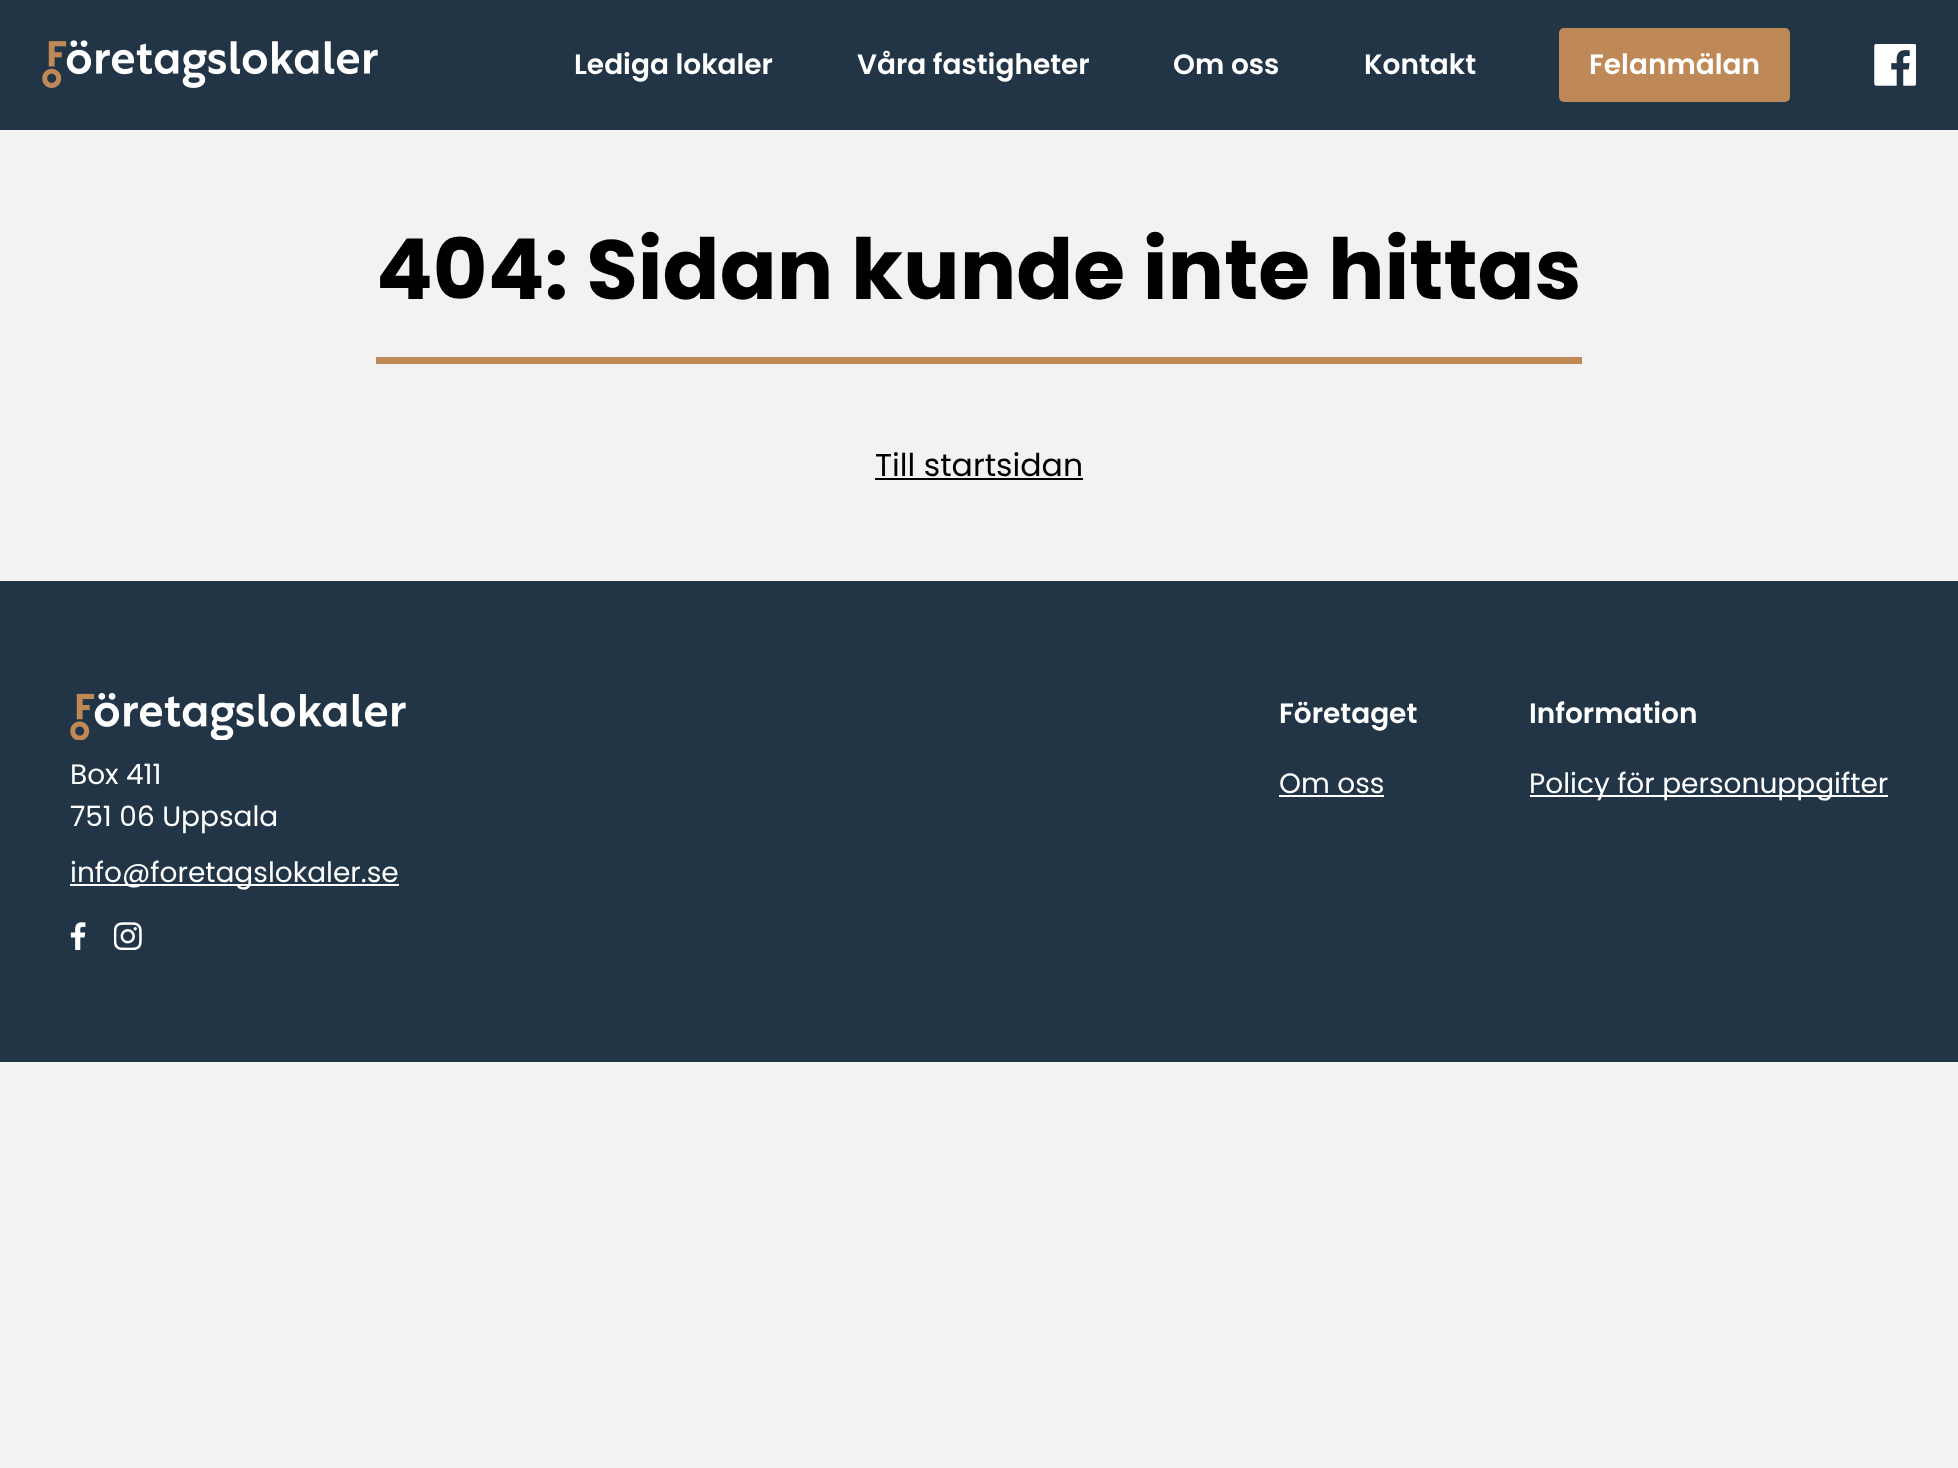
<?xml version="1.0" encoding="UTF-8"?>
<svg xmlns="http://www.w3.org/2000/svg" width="1958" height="1468">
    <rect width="100%" height="100%" fill="#F2F2F2"/>
    <rect x="0" y="0" width="1958" height="130" fill="#223547"/>
    <image x="42" y="40" width="336" height="48" href="img_01.png"/>
    <text x="574" y="74" font-family="Poppins" font-size="28" font-weight="600" fill="#FFFFFF">Lediga lokaler</text>
    <text x="857" y="74" font-family="Poppins" font-size="28" font-weight="600" fill="#FFFFFF">Våra fastigheter</text>
    <text x="1173" y="74" font-family="Poppins" font-size="28" font-weight="600" fill="#FFFFFF">Om oss</text>
    <text x="1364" y="74" font-family="Poppins" font-size="28" font-weight="600" fill="#FFFFFF">Kontakt</text>
    <rect x="1559" y="28" width="231" height="74" rx="5" fill="#BE8957"/>
    <text x="1589" y="74" font-family="Poppins" font-size="28" font-weight="600" fill="#FFFFFF">Felanmälan</text>
    <image x="1874" y="44" width="42" height="42" href="img_02.png"/>
    <rect x="376" y="357" width="1206" height="7" fill="#BE8957"/>
    <text x="376" y="299" font-family="Poppins" font-size="84" font-weight="700" fill="#000000">404: Sidan kunde inte hittas</text>
    <text x="875" y="476" font-family="Poppins" font-size="31.5" fill="#000000">Till startsidan</text>
    <rect x="875" y="478" width="208" height="2" fill="#000000"/>
    <rect x="0" y="581" width="1958" height="481" fill="#223547"/>
    <text x="1279" y="723" font-family="Poppins" font-size="28" font-weight="600" fill="#FFFFFF">Företaget</text>
    <text x="1279" y="793" font-family="Poppins" font-size="28" fill="#FFFFFF">Om oss</text>
    <rect x="1279" y="795" width="105" height="2" fill="#FFFFFF"/>
    <text x="1529" y="723" font-family="Poppins" font-size="28" font-weight="600" fill="#FFFFFF">Information</text>
    <rect x="1530" y="795" width="358" height="2" fill="#FFFFFF"/>
    <text x="1529" y="793" font-family="Poppins" font-size="28" fill="#FFFFFF">Policy för personuppgifter</text>
    <image x="70" y="693" width="336" height="47" href="img_03.png"/>
    <text font-family="Poppins" font-size="28" fill="#FFFFFF">
        <tspan x="70" y="784">Box 411</tspan>
        <tspan x="70" y="826">751 06 Uppsala</tspan>
    </text>
    <rect x="70" y="884" width="329" height="2" fill="#FFFFFF"/>
    <text x="70" y="882" font-family="Poppins" font-size="28" fill="#FFFFFF">info@foretagslokaler.se</text>
    <image x="70" y="922" width="16" height="28" href="img_04.png"/>
    <image x="114" y="922" width="28" height="28" href="img_05.png"/>
</svg>
